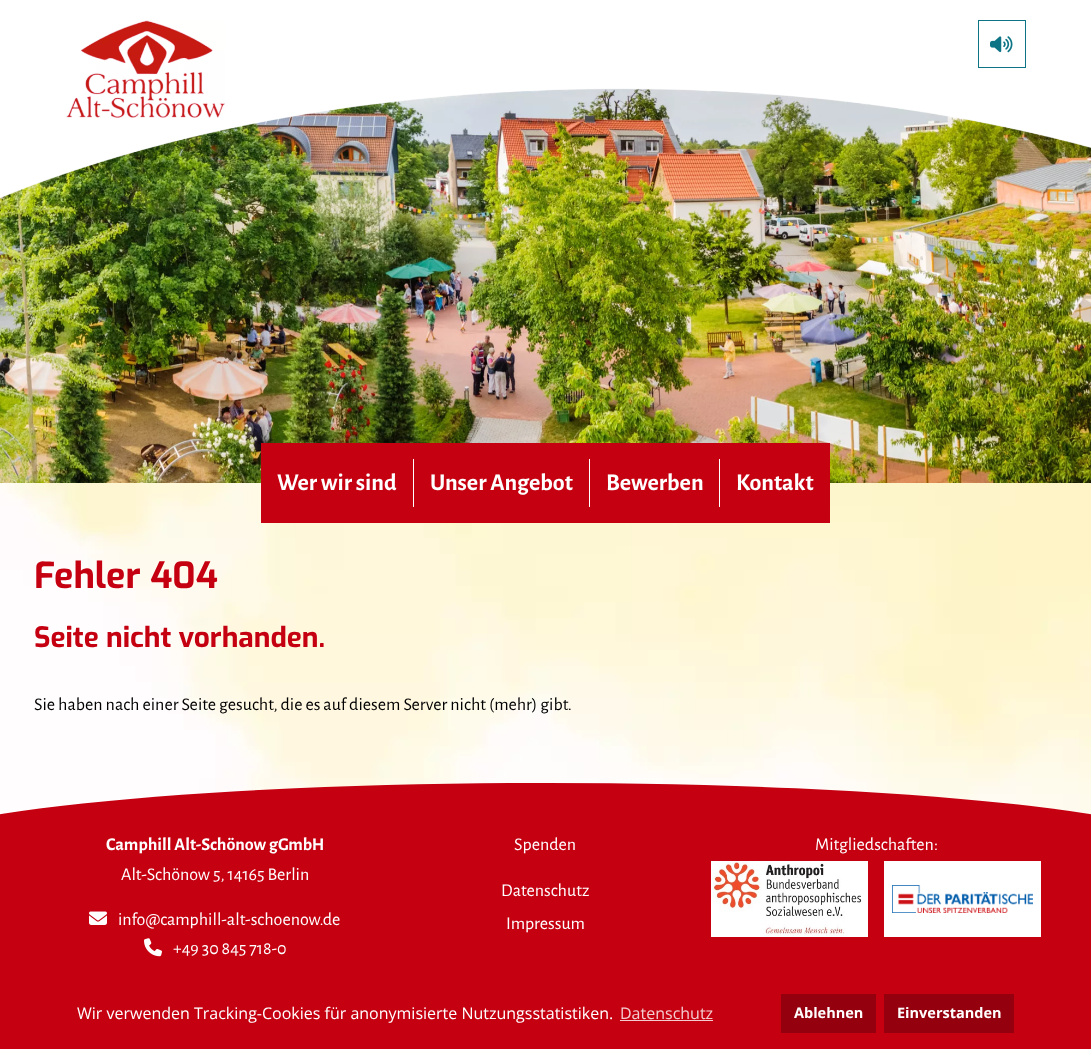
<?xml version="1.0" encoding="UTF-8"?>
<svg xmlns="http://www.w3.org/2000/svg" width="1091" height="1049">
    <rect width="100%" height="100%" fill="#FFFFFF"/>
    <image x="0" y="483" width="1091" height="332" href="img_01.png"/>
    <image x="0" y="88" width="1091" height="395" href="img_02.png"/>
    <image x="66" y="20" width="159" height="98" href="img_03.png"/>
    <rect x="978.5" y="20.5" width="47" height="47" fill="none" stroke="#0D7485"/>
    <image x="990" y="36" width="23" height="17" href="img_04.png"/>
    <rect x="261" y="443" width="569" height="80" fill="#C50011"/>
    <rect x="413" y="459" width="1" height="48" fill="#FFFFFF"/>
    <text x="277" y="490" font-family="Alegreya Sans" font-size="24" font-weight="700" fill="#FFFFFF">Wer wir sind</text>
    <rect x="589" y="459" width="1" height="48" fill="#FFFFFF"/>
    <text x="430" y="490" font-family="Alegreya Sans" font-size="24" font-weight="700" fill="#FFFFFF">Unser Angebot</text>
    <rect x="719" y="459" width="1" height="48" fill="#FFFFFF"/>
    <text x="606" y="490" font-family="Alegreya Sans" font-size="24" font-weight="700" fill="#FFFFFF">Bewerben</text>
    <text x="736" y="490" font-family="Alegreya Sans" font-size="24" font-weight="700" fill="#FFFFFF">Kontakt</text>
    <text x="34" y="588" font-family="Exo" font-size="36" font-weight="700" fill="#C50011">Fehler 404</text>
    <text x="34" y="647" font-family="Exo" font-size="28" font-weight="700" fill="#C50011">Seite nicht vorhanden.</text>
    <text x="34" y="710" font-family="Alegreya Sans" font-size="18" fill="#000000">Sie haben nach einer Seite gesucht, die es auf diesem Server nicht (mehr) gibt.</text>
    <ellipse cx="545.5" cy="853" rx="654.5" ry="70" fill="#C50011"/>
    <rect x="0" y="891" width="1091" height="158" fill="#C50011"/>
    <text x="106" y="850" font-family="Alegreya Sans" font-size="18" font-weight="700" fill="#FFFFFF">Camphill Alt-Schönow gGmbH</text>
    <text x="121" y="880" font-family="Alegreya Sans" font-size="18" fill="#FFFFFF">Alt-Schönow 5, 14165 Berlin</text>
    <image x="89" y="911" width="18" height="14" href="img_05.png"/>
    <text x="118" y="925" font-family="Alegreya Sans" font-size="18" fill="#FFFFFF">info@camphill-alt-schoenow.de</text>
    <image x="144" y="938" width="18" height="19" href="img_06.png"/>
    <text x="173" y="954" font-family="Alegreya Sans" font-size="18" fill="#FFFFFF">+49 30 845 718-0</text>
    <text x="514" y="850" font-family="Alegreya Sans" font-size="18" fill="#FFFFFF">Spenden</text>
    <text x="501" y="896" font-family="Alegreya Sans" font-size="18" fill="#FFFFFF">Datenschutz</text>
    <text x="506" y="929" font-family="Alegreya Sans" font-size="18" fill="#FFFFFF">Impressum</text>
    <text x="815" y="850" font-family="Alegreya Sans" font-size="18" fill="#FFFFFF">Mitgliedschaften:</text>
    <image x="711" y="861" width="157" height="76" href="img_07.png"/>
    <rect x="884" y="861" width="157" height="76" fill="#FFFFFF"/>
    <image x="892" y="885" width="141" height="28" href="img_08.png"/>
    <text x="77" y="1019" font-family="Open Sans" font-size="16" fill="#FFFFFF">Wir verwenden Tracking-Cookies für anonymisierte Nutzungsstatistiken.</text>
    <text x="620" y="1019" font-family="Open Sans" font-size="16" fill="#F3CCCF">Datenschutz</text>
    <rect x="620" y="1020" width="93" height="1" fill="#F3CCCF"/>
    <rect x="781" y="994" width="95" height="39" fill="#94000D"/>
    <text x="794" y="1018" font-family="Open Sans" font-size="14.5" font-weight="700" fill="#FFFFFF">Ablehnen</text>
    <rect x="884" y="994" width="130" height="39" fill="#94000D"/>
    <text x="897" y="1018" font-family="Open Sans" font-size="14.5" font-weight="700" fill="#FFFFFF">Einverstanden</text>
</svg>
